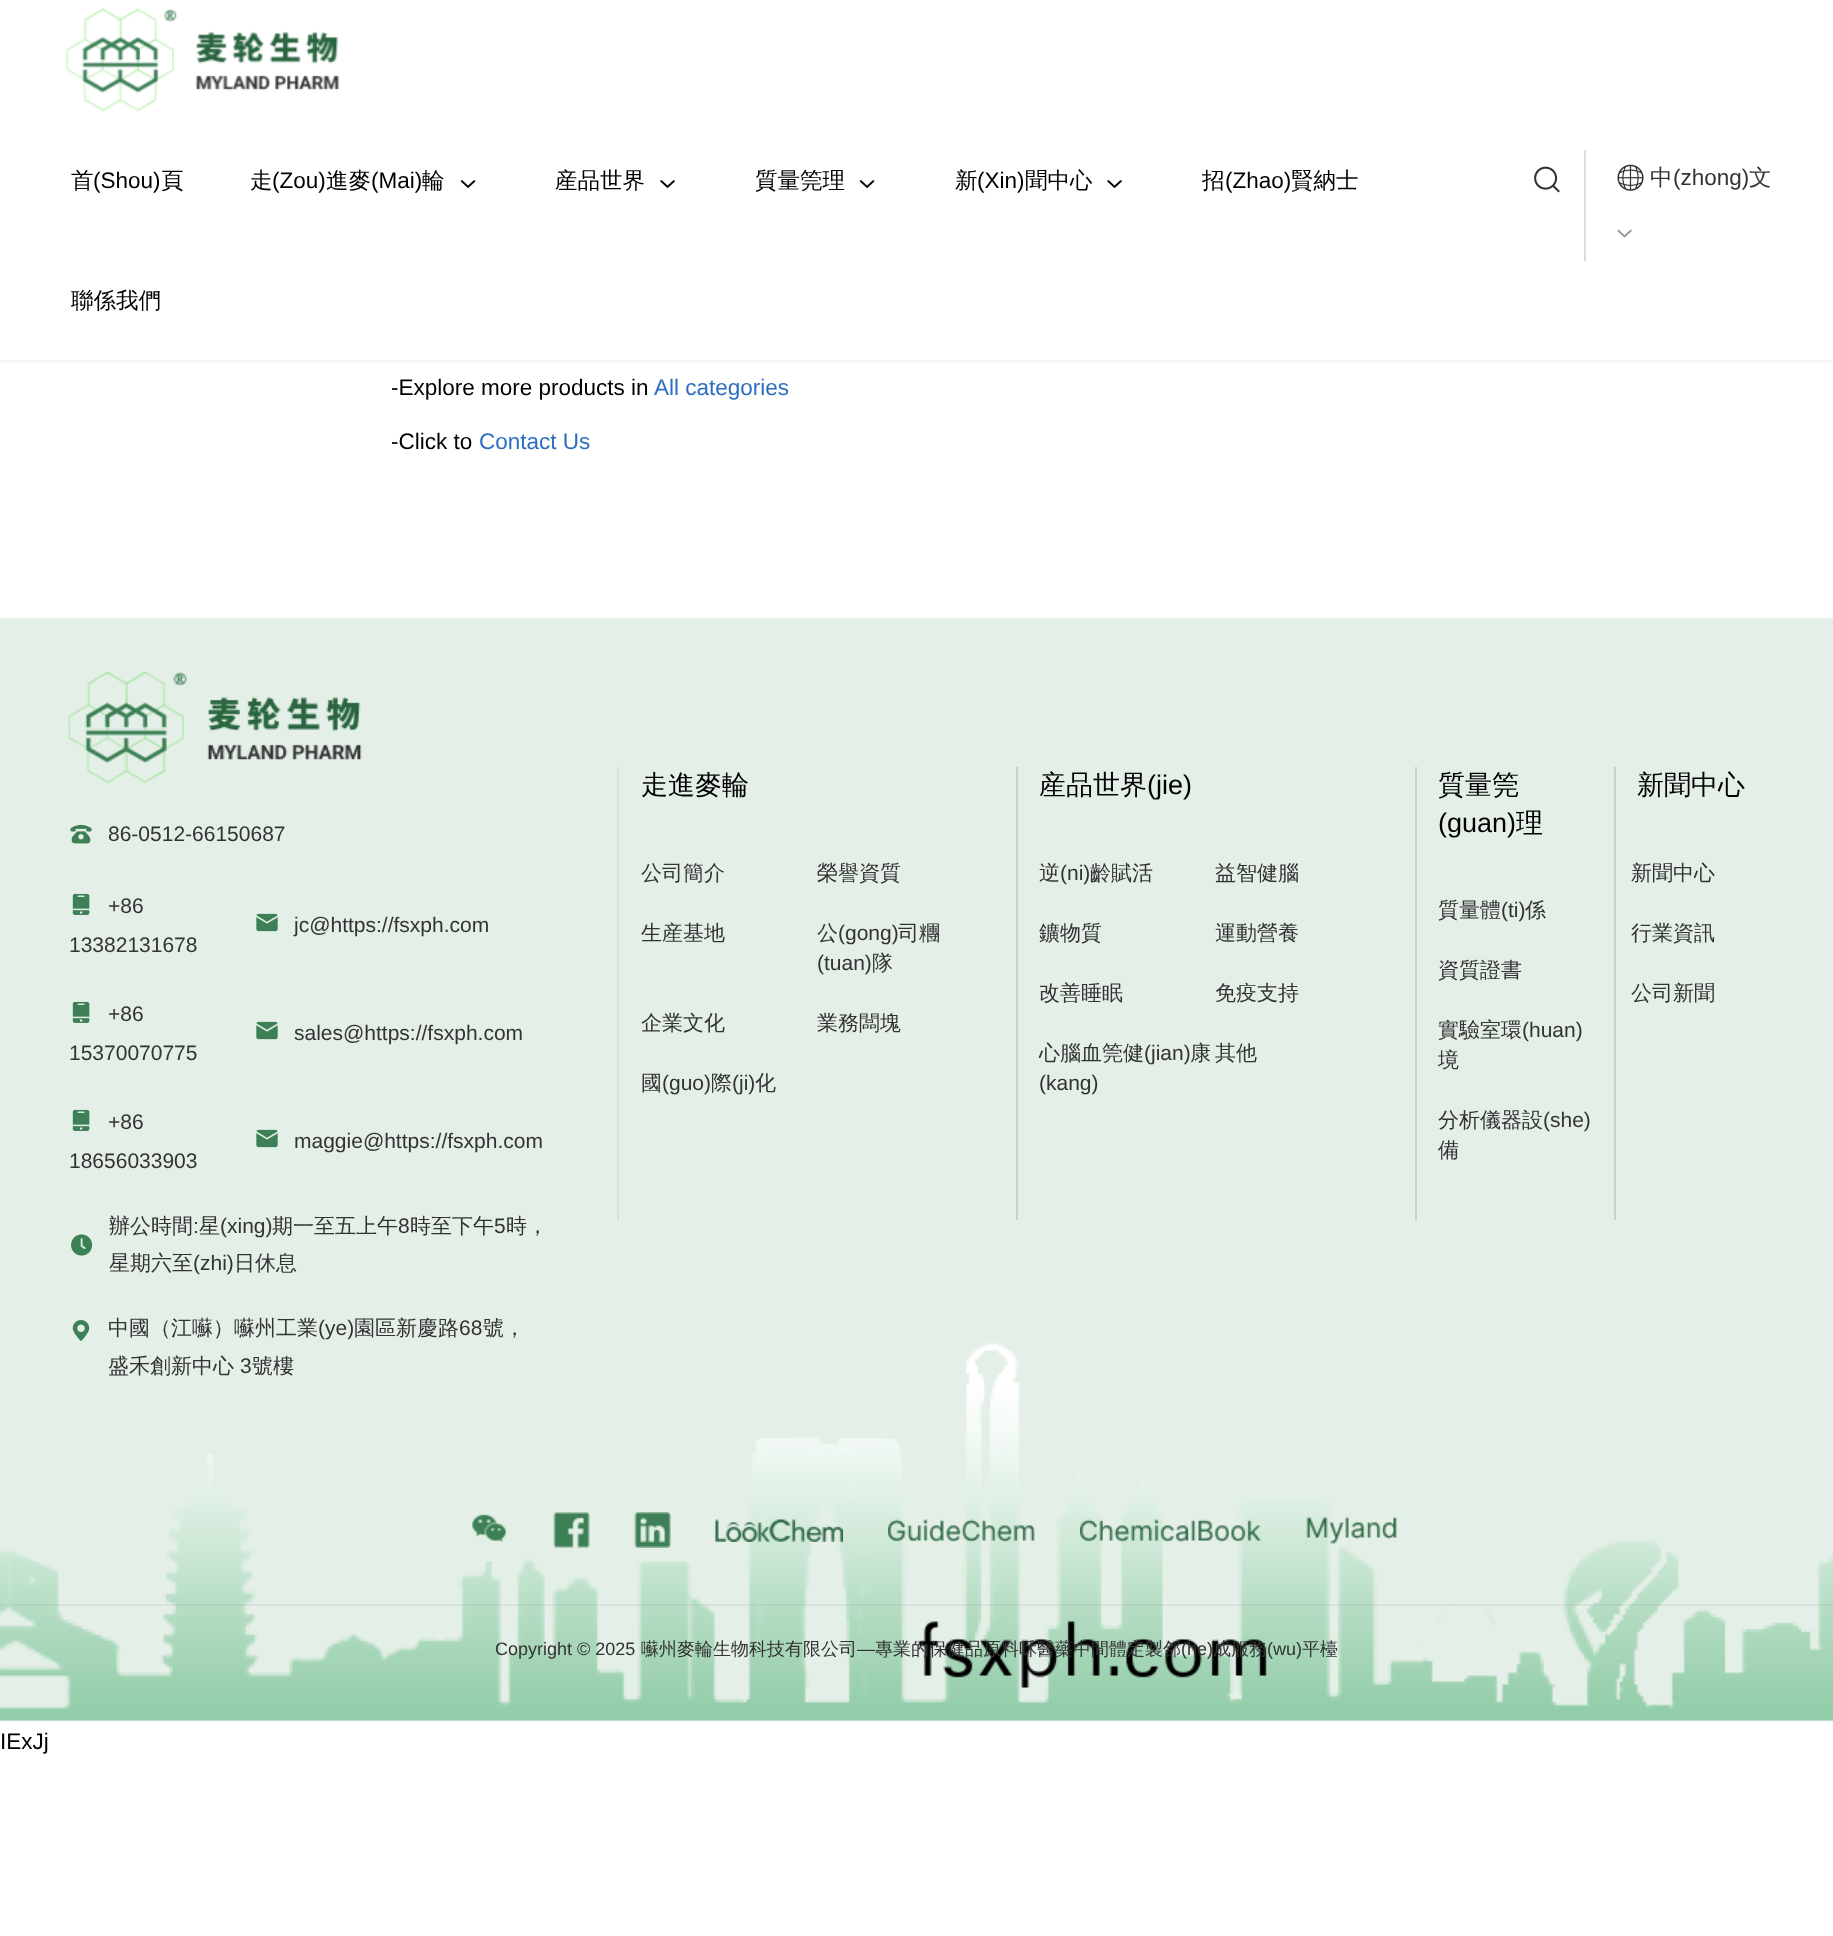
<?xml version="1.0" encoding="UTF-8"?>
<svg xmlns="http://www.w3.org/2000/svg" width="1833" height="1936">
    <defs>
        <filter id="blur1" x="-50%" y="-200%" width="200%" height="500%"><feGaussianBlur stdDeviation="2"/></filter>
    </defs>
    <rect width="100%" height="100%" fill="#FFFFFF"/>
    <rect x="0" y="0" width="1833" height="360" fill="#DDDDDD" filter="url(#blur1)"/>
    <rect x="0" y="0" width="1833" height="360" fill="#FFFFFF"/>
    <image x="66" y="8" width="274" height="104" href="img_01.png"/>
    <text x="71" y="188" font-family="WenQuanYi Zen Hei" font-size="22.5" font-weight="500" fill="#000000">首</text>
    <text x="93" y="188" font-family="Liberation Sans" font-size="22.5" fill="#000000">(Shou)</text>
    <text x="161" y="188" font-family="WenQuanYi Zen Hei" font-size="22.5" font-weight="500" fill="#000000">頁</text>
    <text x="250" y="188" font-family="WenQuanYi Zen Hei" font-size="22.5" font-weight="500" fill="#000000">走</text>
    <text x="272" y="188" font-family="Liberation Sans" font-size="22.5" fill="#000000">(Zou)</text>
    <text x="326" y="188" font-family="WenQuanYi Zen Hei" font-size="22.5" font-weight="500" fill="#000000">進麥</text>
    <text x="371" y="188" font-family="Liberation Sans" font-size="22.5" fill="#000000">(Mai)</text>
    <text x="422" y="188" font-family="WenQuanYi Zen Hei" font-size="22.5" font-weight="500" fill="#000000">輪</text>
    <image x="460" y="180" width="16" height="9" href="img_02.png"/>
    <text x="555" y="188" font-family="WenQuanYi Zen Hei" font-size="22.5" font-weight="500" fill="#000000">産品世界</text>
    <image x="660" y="180" width="15" height="9" href="img_03.png"/>
    <text x="755" y="188" font-family="WenQuanYi Zen Hei" font-size="22.5" font-weight="500" fill="#000000">質量筦理</text>
    <image x="859" y="180" width="16" height="9" href="img_02.png"/>
    <text x="955" y="188" font-family="WenQuanYi Zen Hei" font-size="22.5" font-weight="500" fill="#000000">新</text>
    <text x="977" y="188" font-family="Liberation Sans" font-size="22.5" fill="#000000">(Xin)</text>
    <text x="1025" y="188" font-family="WenQuanYi Zen Hei" font-size="22.5" font-weight="500" fill="#000000">聞中心</text>
    <image x="1107" y="180" width="15" height="9" href="img_03.png"/>
    <text x="1202" y="188" font-family="WenQuanYi Zen Hei" font-size="22.5" font-weight="500" fill="#000000">招</text>
    <text x="1225" y="188" font-family="Liberation Sans" font-size="22.5" fill="#000000">(Zhao)</text>
    <text x="1291" y="188" font-family="WenQuanYi Zen Hei" font-size="22.5" font-weight="500" fill="#000000">賢納士</text>
    <text x="71" y="308" font-family="WenQuanYi Zen Hei" font-size="22.5" font-weight="500" fill="#000000">聯係我們</text>
    <image x="1534" y="166" width="26" height="27" href="img_04.png"/>
    <rect x="1584" y="150" width="2" height="111" fill="#DDDDDD"/>
    <image x="1617" y="164" width="27" height="27" href="img_05.png"/>
    <text x="1650" y="185" font-family="WenQuanYi Zen Hei" font-size="22.5" font-weight="500" fill="#333333">中</text>
    <text x="1673" y="185" font-family="Liberation Sans" font-size="22.5" fill="#333333">(zhong)</text>
    <text x="1749" y="185" font-family="WenQuanYi Zen Hei" font-size="22.5" font-weight="500" fill="#333333">文</text>
    <image x="1617" y="229" width="15" height="9" href="img_06.png"/>
    <text x="391" y="395" font-family="Liberation Sans" font-size="22.5" fill="#000000">-Explore more products in</text>
    <text x="654" y="395" font-family="Liberation Sans" font-size="22.5" fill="#2C6EBF">All categories</text>
    <text x="391" y="449" font-family="Liberation Sans" font-size="22.5" fill="#000000">-Click to</text>
    <text x="479" y="449" font-family="Liberation Sans" font-size="22.5" fill="#2C6EBF">Contact Us</text>
    <rect x="0" y="618" width="1833" height="1103" fill="#E3EFE7"/>
    <image x="0" y="1341" width="1833" height="380" href="img_07.png"/>
    <image x="68" y="672" width="294" height="111" href="img_08.png"/>
    <image x="70" y="824" width="22" height="20" href="img_09.png"/>
    <text x="108" y="841" font-family="Liberation Sans" font-size="21" fill="#333333">86-0512-66150687</text>
    <image x="72" y="893" width="18" height="22" href="img_10.png"/>
    <text x="108" y="913" font-family="Liberation Sans" font-size="21" fill="#333333">+86</text>
    <text x="69" y="952" font-family="Liberation Sans" font-size="21" fill="#333333">13382131678</text>
    <image x="256" y="913" width="22" height="19" href="img_11.png"/>
    <text x="294" y="932" font-family="Liberation Sans" font-size="21" fill="#333333">jc@https://fsxph.com</text>
    <image x="72" y="1001" width="18" height="22" href="img_10.png"/>
    <text x="108" y="1021" font-family="Liberation Sans" font-size="21" fill="#333333">+86</text>
    <text x="69" y="1060" font-family="Liberation Sans" font-size="21" fill="#333333">15370070775</text>
    <image x="256" y="1021" width="22" height="19" href="img_11.png"/>
    <text x="294" y="1040" font-family="Liberation Sans" font-size="21" fill="#333333">sales@https://fsxph.com</text>
    <image x="72" y="1109" width="18" height="22" href="img_10.png"/>
    <text x="108" y="1129" font-family="Liberation Sans" font-size="21" fill="#333333">+86</text>
    <text x="69" y="1168" font-family="Liberation Sans" font-size="21" fill="#333333">18656033903</text>
    <image x="256" y="1129" width="22" height="19" href="img_11.png"/>
    <text x="294" y="1148" font-family="Liberation Sans" font-size="21" fill="#333333">maggie@https://fsxph.com</text>
    <image x="71" y="1234" width="22" height="22" href="img_12.png"/>
    <text x="109" y="1233" font-family="WenQuanYi Zen Hei" font-size="21" font-weight="500" fill="#333333">辦公時間</text>
    <text x="193" y="1233" font-family="Liberation Sans" font-size="21" fill="#333333">:</text>
    <text x="199" y="1233" font-family="WenQuanYi Zen Hei" font-size="21" font-weight="500" fill="#333333">星</text>
    <text x="220" y="1233" font-family="Liberation Sans" font-size="21" fill="#333333">(xing)</text>
    <text x="272" y="1233" font-family="WenQuanYi Zen Hei" font-size="21" font-weight="500" fill="#333333">期一至五上午</text>
    <text x="398" y="1233" font-family="Liberation Sans" font-size="21" fill="#333333">8</text>
    <text x="410" y="1233" font-family="WenQuanYi Zen Hei" font-size="21" font-weight="500" fill="#333333">時至下午</text>
    <text x="494" y="1233" font-family="Liberation Sans" font-size="21" fill="#333333">5</text>
    <text x="506" y="1233" font-family="WenQuanYi Zen Hei" font-size="21" font-weight="500" fill="#333333">時，</text>
    <text x="109" y="1270" font-family="WenQuanYi Zen Hei" font-size="21" font-weight="500" fill="#333333">星期六至</text>
    <text x="193" y="1270" font-family="Liberation Sans" font-size="21" fill="#333333">(zhi)</text>
    <text x="234" y="1270" font-family="WenQuanYi Zen Hei" font-size="21" font-weight="500" fill="#333333">日休息</text>
    <image x="72" y="1320" width="18" height="21" href="img_13.png"/>
    <text x="108" y="1335" font-family="WenQuanYi Zen Hei" font-size="21" font-weight="500" fill="#333333">中國（江囌）囌州工業</text>
    <text x="318" y="1335" font-family="Liberation Sans" font-size="21" fill="#333333">(ye)</text>
    <text x="354" y="1335" font-family="WenQuanYi Zen Hei" font-size="21" font-weight="500" fill="#333333">園區新慶路</text>
    <text x="459" y="1335" font-family="Liberation Sans" font-size="21" fill="#333333">68</text>
    <text x="483" y="1335" font-family="WenQuanYi Zen Hei" font-size="21" font-weight="500" fill="#333333">號，</text>
    <text x="108" y="1373" font-family="WenQuanYi Zen Hei" font-size="21" font-weight="500" fill="#333333">盛禾創新中心</text>
    <text x="240" y="1373" font-family="Liberation Sans" font-size="21" fill="#333333">3</text>
    <text x="252" y="1373" font-family="WenQuanYi Zen Hei" font-size="21" font-weight="500" fill="#333333">號樓</text>
    <rect x="1016" y="767" width="2" height="453" fill="#C8D2CB"/>
    <rect x="617" y="767" width="2" height="453" fill="#DDDDDD"/>
    <text x="641" y="794" font-family="WenQuanYi Zen Hei" font-size="27" font-weight="500" fill="#000000">走進麥輪</text>
    <text x="641" y="880" font-family="WenQuanYi Zen Hei" font-size="21" font-weight="500" fill="#333333">公司簡介</text>
    <text x="817" y="880" font-family="WenQuanYi Zen Hei" font-size="21" font-weight="500" fill="#333333">榮譽資質</text>
    <text x="641" y="940" font-family="WenQuanYi Zen Hei" font-size="21" font-weight="500" fill="#333333">生産基地</text>
    <text x="817" y="940" font-family="WenQuanYi Zen Hei" font-size="21" font-weight="500" fill="#333333">公</text>
    <text x="838" y="940" font-family="Liberation Sans" font-size="21" fill="#333333">(gong)</text>
    <text x="898" y="940" font-family="WenQuanYi Zen Hei" font-size="21" font-weight="500" fill="#333333">司糰</text>
    <text x="817" y="970" font-family="Liberation Sans" font-size="21" fill="#333333">(tuan)</text>
    <text x="872" y="970" font-family="WenQuanYi Zen Hei" font-size="21" font-weight="500" fill="#333333">隊</text>
    <text x="641" y="1030" font-family="WenQuanYi Zen Hei" font-size="21" font-weight="500" fill="#333333">企業文化</text>
    <text x="817" y="1030" font-family="WenQuanYi Zen Hei" font-size="21" font-weight="500" fill="#333333">業務闆塊</text>
    <text x="641" y="1090" font-family="WenQuanYi Zen Hei" font-size="21" font-weight="500" fill="#333333">國</text>
    <text x="662" y="1090" font-family="Liberation Sans" font-size="21" fill="#333333">(guo)</text>
    <text x="711" y="1090" font-family="WenQuanYi Zen Hei" font-size="21" font-weight="500" fill="#333333">際</text>
    <text x="732" y="1090" font-family="Liberation Sans" font-size="21" fill="#333333">(ji)</text>
    <text x="755" y="1090" font-family="WenQuanYi Zen Hei" font-size="21" font-weight="500" fill="#333333">化</text>
    <rect x="1415" y="767" width="2" height="453" fill="#C8D2CB"/>
    <text x="1039" y="794" font-family="WenQuanYi Zen Hei" font-size="27" font-weight="500" fill="#000000">産品世界</text>
    <text x="1147" y="794" font-family="Liberation Sans" font-size="27" fill="#000000">(jie)</text>
    <text x="1039" y="880" font-family="WenQuanYi Zen Hei" font-size="21" font-weight="500" fill="#333333">逆</text>
    <text x="1060" y="880" font-family="Liberation Sans" font-size="21" fill="#333333">(ni)</text>
    <text x="1090" y="880" font-family="WenQuanYi Zen Hei" font-size="21" font-weight="500" fill="#333333">齡賦活</text>
    <text x="1215" y="880" font-family="WenQuanYi Zen Hei" font-size="21" font-weight="500" fill="#333333">益智健腦</text>
    <text x="1039" y="940" font-family="WenQuanYi Zen Hei" font-size="21" font-weight="500" fill="#333333">鑛物質</text>
    <text x="1215" y="940" font-family="WenQuanYi Zen Hei" font-size="21" font-weight="500" fill="#333333">運動營養</text>
    <text x="1039" y="1000" font-family="WenQuanYi Zen Hei" font-size="21" font-weight="500" fill="#333333">改善睡眠</text>
    <text x="1215" y="1000" font-family="WenQuanYi Zen Hei" font-size="21" font-weight="500" fill="#333333">免疫支持</text>
    <text x="1039" y="1060" font-family="WenQuanYi Zen Hei" font-size="21" font-weight="500" fill="#333333">心腦血筦健</text>
    <text x="1144" y="1060" font-family="Liberation Sans" font-size="21" fill="#333333">(jian)</text>
    <text x="1190" y="1060" font-family="WenQuanYi Zen Hei" font-size="21" font-weight="500" fill="#333333">康</text>
    <text x="1039" y="1090" font-family="Liberation Sans" font-size="21" fill="#333333">(kang)</text>
    <text x="1215" y="1060" font-family="WenQuanYi Zen Hei" font-size="21" font-weight="500" fill="#333333">其他</text>
    <rect x="1614" y="767" width="2" height="453" fill="#C8D2CB"/>
    <text x="1438" y="794" font-family="WenQuanYi Zen Hei" font-size="27" font-weight="500" fill="#000000">質量筦</text>
    <text x="1438" y="832" font-family="Liberation Sans" font-size="27" fill="#000000">(guan)</text>
    <text x="1516" y="832" font-family="WenQuanYi Zen Hei" font-size="27" font-weight="500" fill="#000000">理</text>
    <text x="1438" y="917" font-family="WenQuanYi Zen Hei" font-size="21" font-weight="500" fill="#333333">質量體</text>
    <text x="1501" y="917" font-family="Liberation Sans" font-size="21" fill="#333333">(ti)</text>
    <text x="1525" y="917" font-family="WenQuanYi Zen Hei" font-size="21" font-weight="500" fill="#333333">係</text>
    <text x="1438" y="977" font-family="WenQuanYi Zen Hei" font-size="21" font-weight="500" fill="#333333">資質證書</text>
    <text x="1438" y="1037" font-family="WenQuanYi Zen Hei" font-size="21" font-weight="500" fill="#333333">實驗室環</text>
    <text x="1522" y="1037" font-family="Liberation Sans" font-size="21" fill="#333333">(huan)</text>
    <text x="1438" y="1067" font-family="WenQuanYi Zen Hei" font-size="21" font-weight="500" fill="#333333">境</text>
    <text x="1438" y="1127" font-family="WenQuanYi Zen Hei" font-size="21" font-weight="500" fill="#333333">分析儀器設</text>
    <text x="1543" y="1127" font-family="Liberation Sans" font-size="21" fill="#333333">(she)</text>
    <text x="1438" y="1157" font-family="WenQuanYi Zen Hei" font-size="21" font-weight="500" fill="#333333">備</text>
    <text x="1637" y="794" font-family="WenQuanYi Zen Hei" font-size="27" font-weight="500" fill="#000000">新聞中心</text>
    <text x="1631" y="880" font-family="WenQuanYi Zen Hei" font-size="21" font-weight="500" fill="#333333">新聞中心</text>
    <text x="1631" y="940" font-family="WenQuanYi Zen Hei" font-size="21" font-weight="500" fill="#333333">行業資訊</text>
    <text x="1631" y="1000" font-family="WenQuanYi Zen Hei" font-size="21" font-weight="500" fill="#333333">公司新聞</text>
    <rect x="0" y="1604" width="1833" height="2" fill="#8F8F8F" fill-opacity="0.12"/>
    <image x="472" y="1514" width="35" height="28" href="img_14.png"/>
    <image x="553" y="1512" width="37" height="36" href="img_15.png"/>
    <image x="634" y="1512" width="37" height="36" href="img_16.png"/>
    <image x="715" y="1519" width="128" height="23" href="img_17.png"/>
    <image x="888" y="1519" width="147" height="23" href="img_18.png"/>
    <image x="1080" y="1519" width="182" height="23" href="img_19.png"/>
    <image x="1306" y="1516" width="91" height="28" href="img_20.png"/>
    <text x="495" y="1655" font-family="Liberation Sans" font-size="18" fill="#333333">Copyright © 2025</text>
    <text x="641" y="1655" font-family="WenQuanYi Zen Hei" font-size="18" font-weight="500" fill="#333333">囌州麥輪生物科技有限公司</text>
    <text x="857" y="1655" font-family="Liberation Sans" font-size="18" fill="#333333">—</text>
    <text x="875" y="1655" font-family="WenQuanYi Zen Hei" font-size="18" font-weight="500" fill="#333333">專業的保健品原料咊醫藥中間體定製郃</text>
    <text x="1181" y="1655" font-family="Liberation Sans" font-size="18" fill="#333333">(he)</text>
    <text x="1213" y="1655" font-family="WenQuanYi Zen Hei" font-size="18" font-weight="500" fill="#333333">成服務</text>
    <text x="1267" y="1655" font-family="Liberation Sans" font-size="18" fill="#333333">(wu)</text>
    <text x="1302" y="1655" font-family="WenQuanYi Zen Hei" font-size="18" font-weight="500" fill="#333333">平檯</text>
    <text x="0" y="1749" font-family="Liberation Sans" font-size="22.5" fill="#000000">IExJj</text>
</svg>
